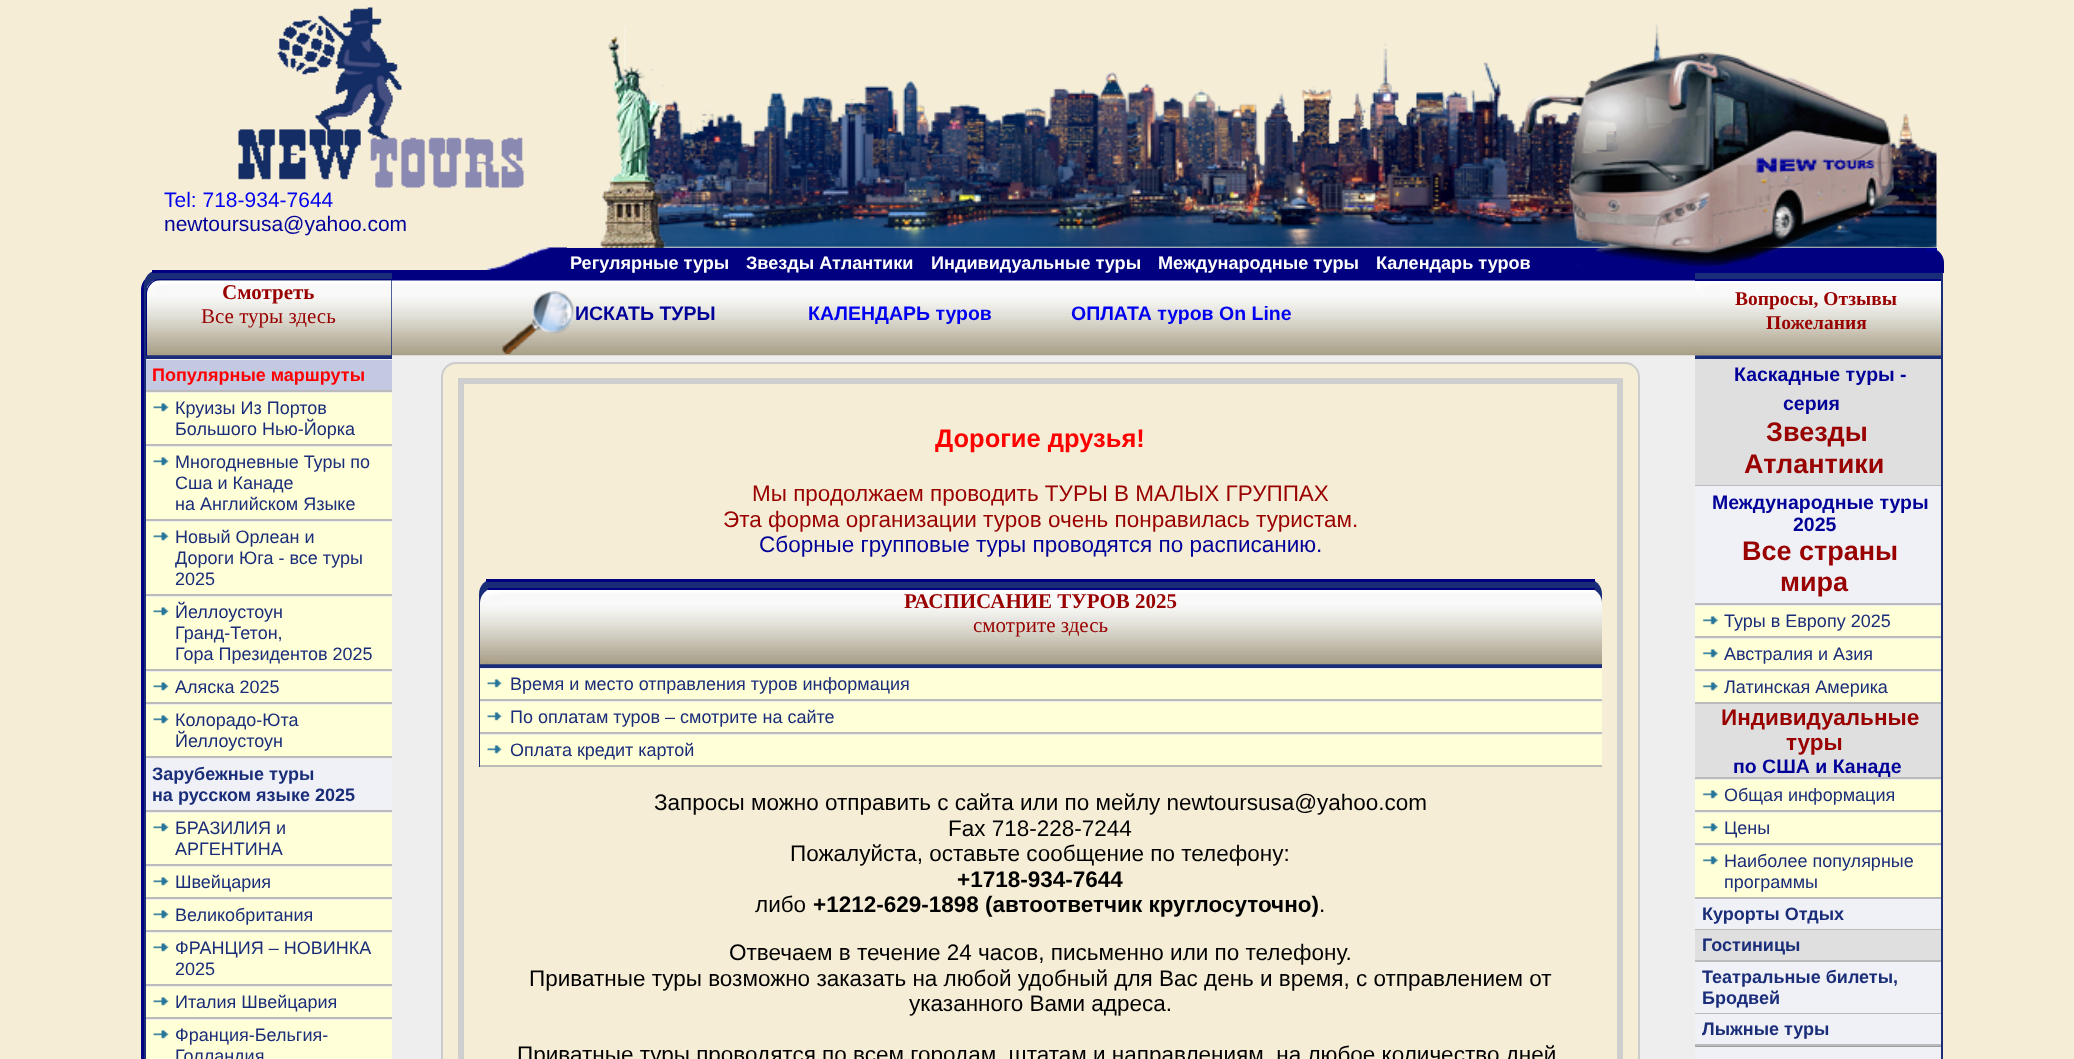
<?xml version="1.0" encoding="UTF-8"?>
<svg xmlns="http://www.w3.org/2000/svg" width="2074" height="1059">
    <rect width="100%" height="100%" fill="#F5EDD6"/>
    <rect x="392" y="270" width="1303" height="4" fill="#000080"/>
    <image x="238" y="7" width="286" height="181" href="img_01.png"/>
    <image x="624" y="24" width="1313" height="224" href="img_02.png"/>
    <image x="600" y="36" width="66" height="212" href="img_03.png"/>
    <rect x="486" y="248" width="1440" height="25" fill="#000080"/>
    <text x="1376" y="269" font-family="Liberation Sans" font-size="18.1" font-weight="700" fill="#FFFFFF">Календарь туров</text>
    <image x="1524" y="52" width="375" height="215" href="img_04.png"/>
    <text x="164" y="207" font-family="Liberation Sans" font-size="21" fill="#0000EE">Tel: 718-934-7644</text>
    <text x="164" y="231" font-family="Liberation Sans" font-size="21" fill="#000099">newtoursusa@yahoo.com</text>
    <image x="486" y="247" width="81" height="23" href="img_05.png"/>
    <text x="570" y="269" font-family="Liberation Sans" font-size="18.1" font-weight="700" fill="#FFFFFF">Регулярные туры</text>
    <text x="746" y="269" font-family="Liberation Sans" font-size="18.1" font-weight="700" fill="#FFFFFF">Звезды Атлантики</text>
    <text x="931" y="269" font-family="Liberation Sans" font-size="18.1" font-weight="700" fill="#FFFFFF">Индивидуальные туры</text>
    <text x="1158" y="269" font-family="Liberation Sans" font-size="18.1" font-weight="700" fill="#FFFFFF">Международные туры</text>
    <path d="M 1926 248 H 1929 C 1937.5 248 1944 254.5 1944 263 V 273 H 1926 Z" fill="#000080"/>
    <rect x="1926" y="248" width="11" height="3" fill="#000099"/>
    <rect x="142.5" y="279.5" width="1797" height="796" rx="13.5" fill="#EEEEEE" stroke="#000080" stroke-width="3"/>
    <image x="144" y="280" width="1551" height="76" href="img_08.png"/>
    <path d="M 156 274 H 1926 C 1934 274 1941 281 1941 290 V 356 H 141 V 290 C 141 281 148 274 156 274 Z M 156 280 H 1926 C 1933 280 1938 285 1938 290 V 356 H 144 V 290 C 144 285 149 280 156 280 Z" fill="#000080" fill-rule="evenodd"/>
    <path d="M 159 270 H 392 V 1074 H 144 V 285 C 144 276.5 150.5 270 159 270 Z" fill="#1A2D79"/>
    <rect x="152" y="270" width="240" height="3" fill="#000080"/>
    <image x="147" y="280" width="245" height="76" href="img_06.png"/>
    <path d="M 160 279 H 392 V 356 H 146 V 294 C 146 286 152 279 160 279 Z M 160 280 H 392 V 356 H 147 V 294 C 147 287 153 280 160 280 Z" fill="#000080" fill-rule="evenodd"/>
    <text x="222" y="299" font-family="Liberation Serif" font-size="21" font-weight="700" fill="#990000">Смотреть</text>
    <text x="201" y="323" font-family="Liberation Serif" font-size="21" fill="#990000">Все туры здесь</text>
    <rect x="146" y="359" width="246" height="1" fill="#EEEEEE"/>
    <rect x="146" y="390" width="246" height="2" fill="#BBBBBB"/>
    <rect x="146" y="360" width="246" height="30" fill="#C3C9E1"/>
    <text x="152" y="381" font-family="Liberation Sans" font-size="18" font-weight="700" fill="#FF0000">Популярные маршруты</text>
    <rect x="146" y="392" width="246" height="1" fill="#EEEEEE"/>
    <rect x="146" y="444" width="246" height="2" fill="#BBBBBB"/>
    <rect x="146" y="393" width="246" height="51" fill="#FFFFD8"/>
    <image x="153" y="403" width="16" height="9" href="img_07.png"/>
    <text font-family="Liberation Sans" font-size="18" fill="#1A2D79">
        <tspan x="175" y="414">Круизы Из Портов</tspan>
        <tspan x="175" y="435">Большого Нью-Йорка</tspan>
    </text>
    <rect x="146" y="446" width="246" height="1" fill="#EEEEEE"/>
    <rect x="146" y="519" width="246" height="2" fill="#BBBBBB"/>
    <rect x="146" y="447" width="246" height="72" fill="#FFFFD8"/>
    <image x="153" y="457" width="16" height="9" href="img_07.png"/>
    <text font-family="Liberation Sans" font-size="18" fill="#1A2D79">
        <tspan x="175" y="468">Многодневные Туры по</tspan>
        <tspan x="175" y="489">Сша и Канаде</tspan>
        <tspan x="175" y="510">на Английском Языке</tspan>
    </text>
    <rect x="146" y="521" width="246" height="1" fill="#EEEEEE"/>
    <rect x="146" y="594" width="246" height="2" fill="#BBBBBB"/>
    <rect x="146" y="522" width="246" height="72" fill="#FFFFD8"/>
    <image x="153" y="532" width="16" height="9" href="img_07.png"/>
    <text font-family="Liberation Sans" font-size="18" fill="#1A2D79">
        <tspan x="175" y="543">Новый Орлеан и</tspan>
        <tspan x="175" y="564">Дороги Юга - все туры</tspan>
        <tspan x="175" y="585">2025</tspan>
    </text>
    <rect x="146" y="596" width="246" height="1" fill="#EEEEEE"/>
    <rect x="146" y="669" width="246" height="2" fill="#BBBBBB"/>
    <rect x="146" y="597" width="246" height="72" fill="#FFFFD8"/>
    <image x="153" y="607" width="16" height="9" href="img_07.png"/>
    <text font-family="Liberation Sans" font-size="18" fill="#1A2D79">
        <tspan x="175" y="618">Йеллоустоун</tspan>
        <tspan x="175" y="639">Гранд-Тетон,</tspan>
        <tspan x="175" y="660">Гора Президентов 2025</tspan>
    </text>
    <rect x="146" y="671" width="246" height="1" fill="#EEEEEE"/>
    <rect x="146" y="702" width="246" height="2" fill="#BBBBBB"/>
    <rect x="146" y="672" width="246" height="30" fill="#FFFFD8"/>
    <image x="153" y="682" width="16" height="9" href="img_07.png"/>
    <text x="175" y="693" font-family="Liberation Sans" font-size="18" fill="#1A2D79">Аляска 2025</text>
    <rect x="146" y="704" width="246" height="1" fill="#EEEEEE"/>
    <rect x="146" y="756" width="246" height="2" fill="#BBBBBB"/>
    <rect x="146" y="705" width="246" height="51" fill="#FFFFD8"/>
    <image x="153" y="715" width="16" height="9" href="img_07.png"/>
    <text font-family="Liberation Sans" font-size="18" fill="#1A2D79">
        <tspan x="175" y="726">Колорадо-Юта</tspan>
        <tspan x="175" y="747">Йеллоустоун</tspan>
    </text>
    <rect x="146" y="758" width="246" height="1" fill="#EEEEEE"/>
    <rect x="146" y="810" width="246" height="2" fill="#BBBBBB"/>
    <rect x="146" y="759" width="246" height="51" fill="#F0F1F6"/>
    <text font-family="Liberation Sans" font-size="18" font-weight="700" fill="#1A2D79">
        <tspan x="152" y="780">Зарубежные туры</tspan>
        <tspan x="152" y="801">на русском языке 2025</tspan>
    </text>
    <rect x="146" y="812" width="246" height="1" fill="#EEEEEE"/>
    <rect x="146" y="864" width="246" height="2" fill="#BBBBBB"/>
    <rect x="146" y="813" width="246" height="51" fill="#FFFFD8"/>
    <image x="153" y="823" width="16" height="9" href="img_07.png"/>
    <text font-family="Liberation Sans" font-size="18" fill="#1A2D79">
        <tspan x="175" y="834">БРАЗИЛИЯ и</tspan>
        <tspan x="175" y="855">АРГЕНТИНА</tspan>
    </text>
    <rect x="146" y="866" width="246" height="1" fill="#EEEEEE"/>
    <rect x="146" y="897" width="246" height="2" fill="#BBBBBB"/>
    <rect x="146" y="867" width="246" height="30" fill="#FFFFD8"/>
    <image x="153" y="877" width="16" height="9" href="img_07.png"/>
    <text x="175" y="888" font-family="Liberation Sans" font-size="18" fill="#1A2D79">Швейцария</text>
    <rect x="146" y="899" width="246" height="1" fill="#EEEEEE"/>
    <rect x="146" y="930" width="246" height="2" fill="#BBBBBB"/>
    <rect x="146" y="900" width="246" height="30" fill="#FFFFD8"/>
    <image x="153" y="910" width="16" height="9" href="img_07.png"/>
    <text x="175" y="921" font-family="Liberation Sans" font-size="18" fill="#1A2D79">Великобритания</text>
    <rect x="146" y="932" width="246" height="1" fill="#EEEEEE"/>
    <rect x="146" y="984" width="246" height="2" fill="#BBBBBB"/>
    <rect x="146" y="933" width="246" height="51" fill="#FFFFD8"/>
    <image x="153" y="943" width="16" height="9" href="img_07.png"/>
    <text font-family="Liberation Sans" font-size="18" fill="#1A2D79">
        <tspan x="175" y="954">ФРАНЦИЯ – НОВИНКА</tspan>
        <tspan x="175" y="975">2025</tspan>
    </text>
    <rect x="146" y="986" width="246" height="1" fill="#EEEEEE"/>
    <rect x="146" y="1017" width="246" height="2" fill="#BBBBBB"/>
    <rect x="146" y="987" width="246" height="30" fill="#FFFFD8"/>
    <image x="153" y="997" width="16" height="9" href="img_07.png"/>
    <text x="175" y="1008" font-family="Liberation Sans" font-size="18" fill="#1A2D79">Италия Швейцария</text>
    <rect x="146" y="1019" width="246" height="1" fill="#EEEEEE"/>
    <rect x="146" y="1020" width="246" height="39" fill="#FFFFD8"/>
    <image x="153" y="1030" width="16" height="9" href="img_07.png"/>
    <text font-family="Liberation Sans" font-size="18" fill="#1A2D79">
        <tspan x="175" y="1041">Франция-Бельгия-</tspan>
        <tspan x="175" y="1062">Голландия</tspan>
    </text>
    <image x="502" y="291" width="73" height="63" href="img_09.png"/>
    <text x="575" y="320" font-family="Liberation Sans" font-size="19.5" font-weight="700" fill="#000099">ИСКАТЬ ТУРЫ</text>
    <text x="808" y="320" font-family="Liberation Sans" font-size="19.5" font-weight="700" fill="#0000EE">КАЛЕНДАРЬ туров</text>
    <text x="1071" y="320" font-family="Liberation Sans" font-size="19.5" font-weight="700" fill="#0000EE">ОПЛАТА туров On Line</text>
    <rect x="1695" y="273" width="248" height="786" fill="#1A2D79"/>
    <image x="1695" y="281" width="246" height="75" href="img_10.png"/>
    <rect x="1695" y="279" width="246" height="2" fill="#000080"/>
    <text x="1735" y="305" font-family="Liberation Serif" font-size="19.5" font-weight="700" fill="#990000">Вопросы, Отзывы</text>
    <text x="1766" y="329" font-family="Liberation Serif" font-size="19.5" font-weight="700" fill="#990000">Пожелания</text>
    <rect x="1695" y="485" width="246" height="1" fill="#BBBBBB"/>
    <rect x="1695" y="359" width="246" height="126" fill="#DFDFDF"/>
    <text x="1734" y="381" font-family="Liberation Sans" font-size="19.5" font-weight="700" fill="#000099">Каскадные туры -</text>
    <text x="1783" y="410" font-family="Liberation Sans" font-size="19.5" font-weight="700" fill="#000099">серия</text>
    <text x="1766" y="441" font-family="Liberation Sans" font-size="27" font-weight="700" fill="#990000">Звезды</text>
    <text x="1744" y="473" font-family="Liberation Sans" font-size="27" font-weight="700" fill="#990000">Атлантики</text>
    <rect x="1695" y="603" width="246" height="2" fill="#BBBBBB"/>
    <rect x="1695" y="486" width="246" height="117" fill="#F0F1F6"/>
    <text x="1712" y="509" font-family="Liberation Sans" font-size="19.5" font-weight="700" fill="#000099">Международные туры</text>
    <text x="1793" y="531" font-family="Liberation Sans" font-size="19.5" font-weight="700" fill="#000099">2025</text>
    <text x="1742" y="560" font-family="Liberation Sans" font-size="27" font-weight="700" fill="#990000">Все страны</text>
    <text x="1780" y="591" font-family="Liberation Sans" font-size="27" font-weight="700" fill="#990000">мира</text>
    <rect x="1695" y="605" width="246" height="1" fill="#EEEEEE"/>
    <rect x="1695" y="636" width="246" height="2" fill="#BBBBBB"/>
    <rect x="1695" y="606" width="246" height="30" fill="#FFFFD8"/>
    <image x="1702" y="616" width="16" height="9" href="img_11.png"/>
    <text x="1724" y="627" font-family="Liberation Sans" font-size="18" fill="#1A2D79">Туры в Европу 2025</text>
    <rect x="1695" y="638" width="246" height="1" fill="#EEEEEE"/>
    <rect x="1695" y="669" width="246" height="2" fill="#BBBBBB"/>
    <rect x="1695" y="639" width="246" height="30" fill="#FFFFD8"/>
    <image x="1702" y="649" width="16" height="9" href="img_11.png"/>
    <text x="1724" y="660" font-family="Liberation Sans" font-size="18" fill="#1A2D79">Австралия и Азия</text>
    <rect x="1695" y="671" width="246" height="1" fill="#EEEEEE"/>
    <rect x="1695" y="702" width="246" height="2" fill="#BBBBBB"/>
    <rect x="1695" y="672" width="246" height="30" fill="#FFFFD8"/>
    <image x="1702" y="682" width="16" height="9" href="img_11.png"/>
    <text x="1724" y="693" font-family="Liberation Sans" font-size="18" fill="#1A2D79">Латинскaя Америкa</text>
    <rect x="1695" y="777" width="246" height="2" fill="#BBBBBB"/>
    <rect x="1695" y="704" width="246" height="73" fill="#DFDFDF"/>
    <text x="1721" y="725" font-family="Liberation Sans" font-size="22.5" font-weight="700" fill="#990000">Индивидуальные</text>
    <text x="1786" y="750" font-family="Liberation Sans" font-size="22.5" font-weight="700" fill="#990000">туры</text>
    <text x="1733" y="773" font-family="Liberation Sans" font-size="19.5" font-weight="700" fill="#000099">по США и Канаде</text>
    <rect x="1695" y="779" width="246" height="1" fill="#EEEEEE"/>
    <rect x="1695" y="810" width="246" height="2" fill="#BBBBBB"/>
    <rect x="1695" y="780" width="246" height="30" fill="#FFFFD8"/>
    <image x="1702" y="790" width="16" height="9" href="img_11.png"/>
    <text x="1724" y="801" font-family="Liberation Sans" font-size="18" fill="#1A2D79">Общая информация</text>
    <rect x="1695" y="812" width="246" height="1" fill="#EEEEEE"/>
    <rect x="1695" y="843" width="246" height="2" fill="#BBBBBB"/>
    <rect x="1695" y="813" width="246" height="30" fill="#FFFFD8"/>
    <image x="1702" y="823" width="16" height="9" href="img_11.png"/>
    <text x="1724" y="834" font-family="Liberation Sans" font-size="18" fill="#1A2D79">Цены</text>
    <rect x="1695" y="845" width="246" height="1" fill="#EEEEEE"/>
    <rect x="1695" y="897" width="246" height="2" fill="#BBBBBB"/>
    <rect x="1695" y="846" width="246" height="51" fill="#FFFFD8"/>
    <image x="1702" y="856" width="16" height="9" href="img_11.png"/>
    <text font-family="Liberation Sans" font-size="18" fill="#1A2D79">
        <tspan x="1724" y="867">Наиболее популярные</tspan>
        <tspan x="1724" y="888">программы</tspan>
    </text>
    <rect x="1695" y="929" width="246" height="1" fill="#BBBBBB"/>
    <rect x="1695" y="899" width="246" height="30" fill="#F0F1F6"/>
    <text x="1702" y="920" font-family="Liberation Sans" font-size="18" font-weight="700" fill="#1A2D79">Курорты Отдых</text>
    <rect x="1695" y="960" width="246" height="2" fill="#BBBBBB"/>
    <rect x="1695" y="930" width="246" height="30" fill="#DFDFDF"/>
    <text x="1702" y="951" font-family="Liberation Sans" font-size="18" font-weight="700" fill="#1A2D79">Гостиницы</text>
    <rect x="1695" y="1013" width="246" height="1" fill="#BBBBBB"/>
    <rect x="1695" y="962" width="246" height="51" fill="#F0F1F6"/>
    <text font-family="Liberation Sans" font-size="18" font-weight="700" fill="#1A2D79">
        <tspan x="1702" y="983">Театральные билеты,</tspan>
        <tspan x="1702" y="1004">Бродвей</tspan>
    </text>
    <rect x="1695" y="1044" width="246" height="2" fill="#BBBBBB"/>
    <rect x="1695" y="1014" width="246" height="30" fill="#F0F1F6"/>
    <text x="1702" y="1035" font-family="Liberation Sans" font-size="18" font-weight="700" fill="#1A2D79">Лыжные туры</text>
    <rect x="1695" y="1046" width="246" height="1" fill="#9E9E9E"/>
    <rect x="1695" y="1047" width="246" height="12" fill="#F0F1F6"/>
    <rect x="442" y="363" width="1197" height="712" rx="14" fill="#F5EDD6" stroke="#CCCCCC" stroke-width="2"/>
    <rect x="461" y="381" width="1159" height="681" fill="none" stroke="#CECECE" stroke-width="6"/>
    <text x="935" y="447" font-family="Liberation Sans" font-size="25.5" font-weight="700" fill="#FF0000">Дорогие друзья!</text>
    <text x="752" y="501" font-family="Liberation Sans" font-size="22.5" fill="#990000">Mы продолжаем проводить ТУРЫ В МАЛЫХ ГРУППАХ</text>
    <text x="723" y="527" font-family="Liberation Sans" font-size="22.5" fill="#990000">Эта форма организации туров очень понравилась туристам.</text>
    <text x="759" y="552" font-family="Liberation Sans" font-size="22.5" fill="#000099">Сборные групповые туры проводятся по расписанию.</text>
    <path d="M 494 579 H 1587 C 1595.5 579 1602 585.5 1602 594 V 767 H 479 V 594 C 479 585.5 485.5 579 494 579 Z" fill="#1A2D79"/>
    <rect x="486" y="579" width="1109" height="3" fill="#000080"/>
    <image x="480" y="589" width="1122" height="76" href="img_12.png"/>
    <rect x="488" y="588" width="1107" height="2" fill="#000080"/>
    <text x="904" y="608" font-family="Liberation Serif" font-size="21" font-weight="700" fill="#990000">РАСПИСАНИЕ ТУРОВ 2025</text>
    <text x="973" y="632" font-family="Liberation Serif" font-size="21" fill="#990000">смотрите здесь</text>
    <rect x="480" y="668" width="1122" height="1" fill="#EEEEEE"/>
    <rect x="480" y="699" width="1122" height="2" fill="#BBBBBB"/>
    <rect x="480" y="669" width="1122" height="30" fill="#FFFFD8"/>
    <image x="487" y="679" width="15" height="9" href="img_13.png"/>
    <text x="510" y="690" font-family="Liberation Sans" font-size="18" fill="#1A2D79">Время и место отправления туров информация</text>
    <rect x="480" y="701" width="1122" height="1" fill="#EEEEEE"/>
    <rect x="480" y="732" width="1122" height="2" fill="#BBBBBB"/>
    <rect x="480" y="702" width="1122" height="30" fill="#FFFFD8"/>
    <image x="487" y="712" width="15" height="9" href="img_13.png"/>
    <text x="510" y="723" font-family="Liberation Sans" font-size="18" fill="#1A2D79">По оплатам туров – смотрите на сайте</text>
    <rect x="480" y="734" width="1122" height="1" fill="#EEEEEE"/>
    <rect x="480" y="765" width="1122" height="2" fill="#BBBBBB"/>
    <rect x="480" y="735" width="1122" height="30" fill="#FFFFD8"/>
    <image x="487" y="745" width="15" height="9" href="img_13.png"/>
    <text x="510" y="756" font-family="Liberation Sans" font-size="18" fill="#1A2D79">Оплата кредит картой</text>
    <text x="654" y="810" font-family="Liberation Sans" font-size="22.5" fill="#000000">Запросы можно отправить с сайта или по мейлу newtoursusa@yahoo.com</text>
    <text x="948" y="836" font-family="Liberation Sans" font-size="22.5" fill="#000000">Fax 718-228-7244</text>
    <text x="790" y="861" font-family="Liberation Sans" font-size="22.5" fill="#000000">Пожалуйста, оставьте сообщение по телефону:</text>
    <text x="957" y="887" font-family="Liberation Sans" font-size="22.5" font-weight="700" fill="#000000">+1718-934-7644</text>
    <text x="755" y="912" font-family="Liberation Sans" font-size="22.5" fill="#000000">либо</text>
    <text x="813" y="912" font-family="Liberation Sans" font-size="22.5" font-weight="700" fill="#000000">+1212-629-1898 (автоответчик круглосуточно)</text>
    <text x="1319" y="912" font-family="Liberation Sans" font-size="22.5" fill="#000000">.</text>
    <text x="729" y="960" font-family="Liberation Sans" font-size="22.5" fill="#000000">Отвечаем в течение 24 часов, письменно или по телефону.</text>
    <text x="529" y="986" font-family="Liberation Sans" font-size="22.5" fill="#000000">Приватные туры возможно заказать на любой удобный для Вас день и время, с отправлением от</text>
    <text x="909" y="1011" font-family="Liberation Sans" font-size="22.5" fill="#000000">указанного Вами адреса.</text>
    <text x="517" y="1062" font-family="Liberation Sans" font-size="22.5" fill="#000000">Приватные туры проводятся по всем городам, штатам и направлениям, на любое количество дней</text>
</svg>
